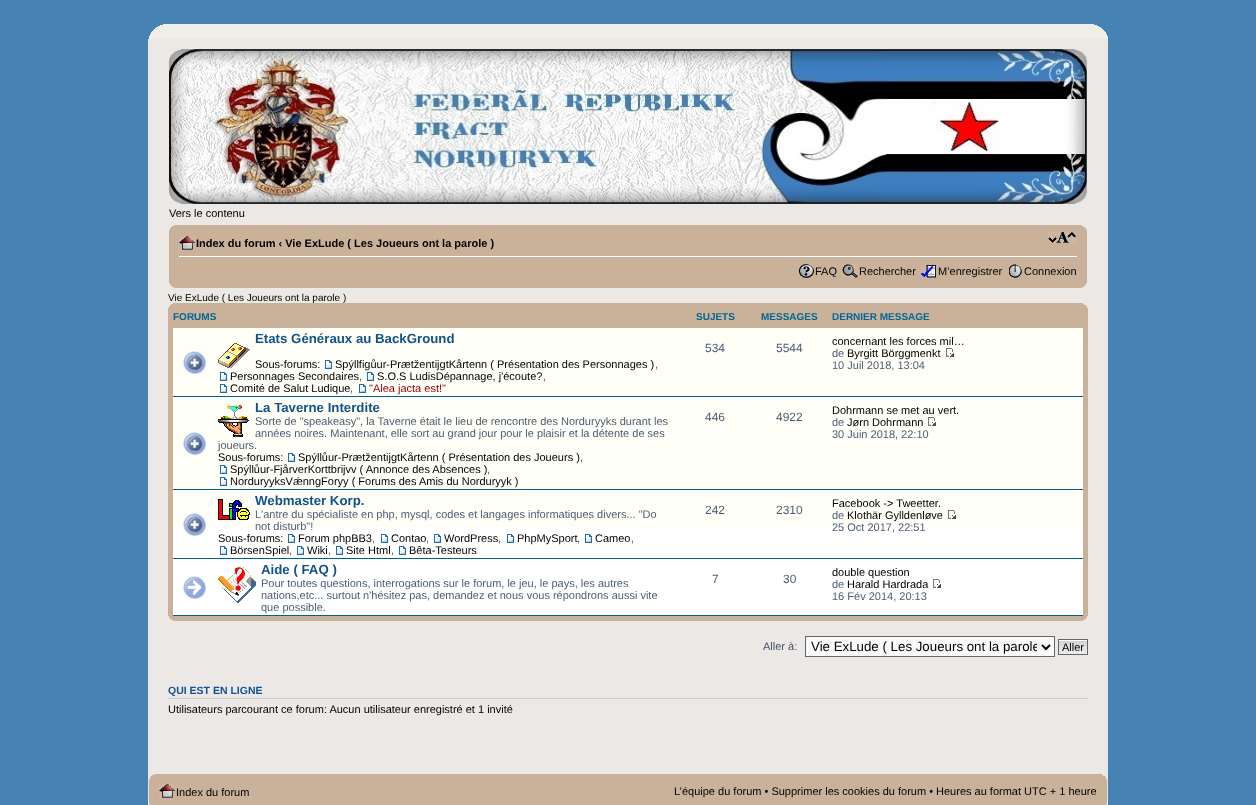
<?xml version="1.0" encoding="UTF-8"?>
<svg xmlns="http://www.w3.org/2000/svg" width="1256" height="805">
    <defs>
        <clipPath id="clip1"><rect x="811" y="638" width="226" height="17"/></clipPath>
    </defs>
    <rect width="100%" height="100%" fill="#4682B4"/>
    <image x="148" y="24" width="960" height="15" href="img_01.png"/>
    <rect x="148" y="39" width="960" height="766" fill="#EBE8E5"/>
    <image x="169" y="49" width="918" height="155" href="img_02.png"/>
    <text x="169" y="217" font-family="Liberation Sans" font-size="11" fill="#000000">Vers le contenu</text>
    <rect x="169" y="225" width="918" height="63" fill="#CAB29A"/>
    <image x="169" y="225" width="5" height="5" href="img_03.png"/>
    <image x="1082" y="225" width="5" height="5" href="img_04.png"/>
    <rect x="179" y="256" width="898" height="1" fill="#FFFFFF"/>
    <image x="1048" y="232" width="28" height="11" href="img_05.png"/>
    <image x="179" y="236" width="16" height="14" href="img_06.png"/>
    <text x="196" y="247" font-family="Liberation Sans" font-size="11" font-weight="700" fill="#000000">Index du forum ‹ Vie ExLude ( Les Joueurs ont la parole )</text>
    <image x="799" y="264" width="15" height="14" href="img_07.png"/>
    <text x="815" y="275" font-family="Liberation Sans" font-size="11" fill="#000000">FAQ</text>
    <image x="842" y="264" width="16" height="14" href="img_08.png"/>
    <text x="859" y="275" font-family="Liberation Sans" font-size="11" fill="#000000">Rechercher</text>
    <image x="921" y="265" width="15" height="13" href="img_09.png"/>
    <text x="938" y="275" font-family="Liberation Sans" font-size="11" fill="#000000">M’enregistrer</text>
    <image x="1009" y="264" width="13" height="14" href="img_10.png"/>
    <text x="1024" y="275" font-family="Liberation Sans" font-size="11" fill="#000000">Connexion</text>
    <image x="169" y="283" width="5" height="5" href="img_11.png"/>
    <image x="1082" y="283" width="5" height="5" href="img_12.png"/>
    <rect x="168" y="303" width="920" height="318" fill="#CAB29A"/>
    <image x="168" y="303" width="5" height="5" href="img_03.png"/>
    <text x="168" y="301" font-family="Liberation Sans" font-size="10" fill="#000000">Vie ExLude ( Les Joueurs ont la parole )</text>
    <image x="1083" y="303" width="5" height="5" href="img_04.png"/>
    <text x="173" y="320" font-family="Liberation Sans" font-size="10" font-weight="700" fill="#006597">FORUMS</text>
    <text x="696" y="320" font-family="Liberation Sans" font-size="10" font-weight="700" fill="#006597">SUJETS</text>
    <text x="761" y="320" font-family="Liberation Sans" font-size="10" font-weight="700" fill="#006597">MESSAGES</text>
    <text x="832" y="320" font-family="Liberation Sans" font-size="10" font-weight="700" fill="#006597">DERNIER MESSAGE</text>
    <rect x="173" y="527" width="910" height="88" fill="#FFFFFF"/>
    <rect x="173" y="329" width="910" height="198" fill="#FFFFF7"/>
    <rect x="173" y="328" width="910" height="1" fill="#FFFFFF"/>
    <rect x="173" y="396" width="910" height="1" fill="#00608F"/>
    <image x="183" y="351" width="24" height="24" href="img_13.png"/>
    <text x="255" y="343" font-family="Liberation Sans" font-size="13.25" font-weight="700" fill="#105289">Etats Généraux au BackGround</text>
    <image x="218" y="343" width="32" height="25" href="img_14.png"/>
    <text x="255" y="368" font-family="Liberation Sans" font-size="11" fill="#000000">Sous-forums:</text>
    <image x="325" y="360" width="7" height="9" href="img_15.png"/>
    <text x="335" y="368" font-family="Liberation Sans" font-size="11" fill="#000000">Spýllfigůur-PrætžentijgtKårtenn ( Présentation des Personnages )</text>
    <text x="655" y="368" font-family="Liberation Sans" font-size="11" fill="#4C5D77">,</text>
    <image x="220" y="372" width="7" height="9" href="img_15.png"/>
    <text x="230" y="380" font-family="Liberation Sans" font-size="11" fill="#000000">Personnages Secondaires</text>
    <text x="359" y="380" font-family="Liberation Sans" font-size="11" fill="#4C5D77">,</text>
    <image x="367" y="372" width="7" height="9" href="img_15.png"/>
    <text x="377" y="380" font-family="Liberation Sans" font-size="11" fill="#000000">S.O.S LudisDépannage, j'écoute?</text>
    <text x="543" y="380" font-family="Liberation Sans" font-size="11" fill="#4C5D77">,</text>
    <image x="220" y="384" width="7" height="9" href="img_15.png"/>
    <text x="230" y="392" font-family="Liberation Sans" font-size="11" fill="#000000">Comité de Salut Ludique</text>
    <text x="350" y="392" font-family="Liberation Sans" font-size="11" fill="#4C5D77">,</text>
    <image x="359" y="384" width="7" height="9" href="img_15.png"/>
    <text x="369" y="392" font-family="Liberation Sans" font-size="11" fill="#990000">"Alea jacta est!"</text>
    <rect x="678" y="331" width="1" height="35" fill="#FFFFFF"/>
    <text x="705" y="352" font-family="Liberation Sans" font-size="12" fill="#4C5D77">534</text>
    <rect x="752" y="331" width="1" height="35" fill="#FFFFFF"/>
    <text x="776" y="352" font-family="Liberation Sans" font-size="12" fill="#4C5D77">5544</text>
    <rect x="826" y="331" width="1" height="44" fill="#FFFFFF"/>
    <text x="832" y="345" font-family="Liberation Sans" font-size="11" fill="#000000">concernant les forces mil…</text>
    <text x="832" y="357" font-family="Liberation Sans" font-size="11" fill="#4C5D77">de</text>
    <text x="847" y="357" font-family="Liberation Sans" font-size="11" fill="#000000">Byrgitt Börggmenkt</text>
    <image x="946" y="348" width="8" height="9" href="img_16.png"/>
    <text x="832" y="369" font-family="Liberation Sans" font-size="11" fill="#4C5D77">10 Juil 2018, 13:04</text>
    <rect x="173" y="397" width="910" height="1" fill="#FFFFFF"/>
    <rect x="173" y="489" width="910" height="1" fill="#00608F"/>
    <image x="183" y="432" width="24" height="24" href="img_13.png"/>
    <image x="218" y="405" width="31" height="32" href="img_17.png"/>
    <text x="255" y="412" font-family="Liberation Sans" font-size="13.25" font-weight="700" fill="#105289">La Taverne Interdite</text>
    <text font-family="Liberation Sans" font-size="11" fill="#4C5D77">
        <tspan x="255" y="425">Sorte de "speakeasy", la Taverne était le lieu de rencontre des Norduryyks durant les</tspan>
        <tspan x="255" y="437">années noires. Maintenant, elle sort au grand jour pour le plaisir et la détente de ses</tspan>
    </text>
    <text x="218" y="449" font-family="Liberation Sans" font-size="11" fill="#4C5D77">joueurs.</text>
    <text x="218" y="461" font-family="Liberation Sans" font-size="11" fill="#000000">Sous-forums:</text>
    <image x="288" y="453" width="7" height="9" href="img_15.png"/>
    <text x="298" y="461" font-family="Liberation Sans" font-size="11" fill="#000000">Spýllůur-PrætžentijgtKårtenn ( Présentation des Joueurs )</text>
    <text x="580" y="461" font-family="Liberation Sans" font-size="11" fill="#4C5D77">,</text>
    <image x="220" y="465" width="7" height="9" href="img_15.png"/>
    <text x="230" y="473" font-family="Liberation Sans" font-size="11" fill="#000000">Spýllůur-FjårverKorttbrijvv ( Annonce des Absences )</text>
    <text x="487" y="473" font-family="Liberation Sans" font-size="11" fill="#4C5D77">,</text>
    <image x="220" y="477" width="7" height="9" href="img_15.png"/>
    <text x="230" y="485" font-family="Liberation Sans" font-size="11" fill="#000000">NorduryyksVǽnngForyy ( Forums des Amis du Norduryyk )</text>
    <rect x="678" y="400" width="1" height="35" fill="#FFFFFF"/>
    <text x="705" y="421" font-family="Liberation Sans" font-size="12" fill="#4C5D77">446</text>
    <rect x="752" y="400" width="1" height="35" fill="#FFFFFF"/>
    <text x="776" y="421" font-family="Liberation Sans" font-size="12" fill="#4C5D77">4922</text>
    <rect x="826" y="400" width="1" height="44" fill="#FFFFFF"/>
    <text x="832" y="414" font-family="Liberation Sans" font-size="11" fill="#000000">Dohrmann se met au vert.</text>
    <text x="832" y="426" font-family="Liberation Sans" font-size="11" fill="#4C5D77">de</text>
    <text x="847" y="426" font-family="Liberation Sans" font-size="11" fill="#000000">Jørn Dohrmann</text>
    <image x="928" y="417" width="8" height="9" href="img_16.png"/>
    <text x="832" y="438" font-family="Liberation Sans" font-size="11" fill="#4C5D77">30 Juin 2018, 22:10</text>
    <rect x="173" y="490" width="910" height="1" fill="#FFFFFF"/>
    <rect x="173" y="558" width="910" height="1" fill="#00608F"/>
    <image x="183" y="513" width="24" height="23" href="img_18.png"/>
    <image x="218" y="499" width="32" height="21" href="img_19.png"/>
    <text x="255" y="505" font-family="Liberation Sans" font-size="13.25" font-weight="700" fill="#105289">Webmaster Korp.</text>
    <text font-family="Liberation Sans" font-size="11" fill="#4C5D77">
        <tspan x="255" y="518">L'antre du spécialiste en php, mysql, codes et langages informatiques divers... "Do</tspan>
        <tspan x="255" y="530">not disturb"!</tspan>
    </text>
    <text x="218" y="542" font-family="Liberation Sans" font-size="11" fill="#000000">Sous-forums:</text>
    <image x="288" y="534" width="7" height="9" href="img_20.png"/>
    <text x="298" y="542" font-family="Liberation Sans" font-size="11" fill="#000000">Forum phpBB3</text>
    <text x="372" y="542" font-family="Liberation Sans" font-size="11" fill="#4C5D77">,</text>
    <image x="381" y="534" width="7" height="9" href="img_20.png"/>
    <text x="391" y="542" font-family="Liberation Sans" font-size="11" fill="#000000">Contao</text>
    <text x="426" y="542" font-family="Liberation Sans" font-size="11" fill="#4C5D77">,</text>
    <image x="434" y="534" width="7" height="9" href="img_20.png"/>
    <text x="444" y="542" font-family="Liberation Sans" font-size="11" fill="#000000">WordPress</text>
    <text x="498" y="542" font-family="Liberation Sans" font-size="11" fill="#4C5D77">,</text>
    <image x="507" y="534" width="7" height="9" href="img_20.png"/>
    <text x="517" y="542" font-family="Liberation Sans" font-size="11" fill="#000000">PhpMySport</text>
    <text x="577" y="542" font-family="Liberation Sans" font-size="11" fill="#4C5D77">,</text>
    <image x="585" y="534" width="7" height="9" href="img_20.png"/>
    <text x="595" y="542" font-family="Liberation Sans" font-size="11" fill="#000000">Cameo</text>
    <text x="631" y="542" font-family="Liberation Sans" font-size="11" fill="#4C5D77">,</text>
    <image x="220" y="546" width="7" height="9" href="img_20.png"/>
    <text x="230" y="554" font-family="Liberation Sans" font-size="11" fill="#000000">BörsenSpiel</text>
    <text x="289" y="554" font-family="Liberation Sans" font-size="11" fill="#4C5D77">,</text>
    <image x="297" y="546" width="7" height="9" href="img_20.png"/>
    <text x="307" y="554" font-family="Liberation Sans" font-size="11" fill="#000000">Wiki</text>
    <text x="328" y="554" font-family="Liberation Sans" font-size="11" fill="#4C5D77">,</text>
    <image x="336" y="546" width="7" height="9" href="img_20.png"/>
    <text x="346" y="554" font-family="Liberation Sans" font-size="11" fill="#000000">Site Html</text>
    <text x="391" y="554" font-family="Liberation Sans" font-size="11" fill="#4C5D77">,</text>
    <image x="399" y="546" width="7" height="9" href="img_20.png"/>
    <text x="409" y="554" font-family="Liberation Sans" font-size="11" fill="#000000">Bêta-Testeurs</text>
    <rect x="678" y="493" width="1" height="35" fill="#FFFFFF"/>
    <text x="705" y="514" font-family="Liberation Sans" font-size="12" fill="#4C5D77">242</text>
    <rect x="752" y="493" width="1" height="35" fill="#FFFFFF"/>
    <text x="776" y="514" font-family="Liberation Sans" font-size="12" fill="#4C5D77">2310</text>
    <rect x="826" y="493" width="1" height="34" fill="#FFFFFF"/>
    <text x="832" y="507" font-family="Liberation Sans" font-size="11" fill="#000000">Facebook -&gt; Tweetter.</text>
    <text x="832" y="519" font-family="Liberation Sans" font-size="11" fill="#4C5D77">de</text>
    <text x="847" y="519" font-family="Liberation Sans" font-size="11" fill="#000000">Klothär Gylldenløve</text>
    <image x="948" y="510" width="8" height="9" href="img_16.png"/>
    <text x="832" y="531" font-family="Liberation Sans" font-size="11" fill="#4C5D77">25 Oct 2017, 22:51</text>
    <rect x="173" y="615" width="910" height="1" fill="#00608F"/>
    <image x="183" y="576" width="23" height="23" href="img_21.png"/>
    <image x="218" y="567" width="38" height="36" href="img_22.png"/>
    <text x="261" y="574" font-family="Liberation Sans" font-size="13.25" font-weight="700" fill="#105289">Aide ( FAQ )</text>
    <text font-family="Liberation Sans" font-size="11" fill="#4C5D77">
        <tspan x="261" y="587">Pour toutes questions, interrogations sur le forum, le jeu, le pays, les autres</tspan>
        <tspan x="261" y="599">nations,etc... surtout n'hésitez pas, demandez et nous vous répondrons aussi vite</tspan>
        <tspan x="261" y="611">que possible.</tspan>
    </text>
    <text x="712" y="583" font-family="Liberation Sans" font-size="12" fill="#4C5D77">7</text>
    <text x="783" y="583" font-family="Liberation Sans" font-size="12" fill="#4C5D77">30</text>
    <text x="832" y="576" font-family="Liberation Sans" font-size="11" fill="#000000">double question</text>
    <text x="832" y="588" font-family="Liberation Sans" font-size="11" fill="#4C5D77">de</text>
    <text x="847" y="588" font-family="Liberation Sans" font-size="11" fill="#000000">Harald Hardrada</text>
    <image x="933" y="579" width="8" height="9" href="img_23.png"/>
    <text x="832" y="600" font-family="Liberation Sans" font-size="11" fill="#4C5D77">16 Fév 2014, 20:13</text>
    <image x="168" y="616" width="5" height="5" href="img_11.png"/>
    <image x="1083" y="616" width="5" height="5" href="img_12.png"/>
    <text x="763" y="650" font-family="Liberation Sans" font-size="11" fill="#425067">Aller à:</text>
    <rect x="805.5" y="636.5" width="249" height="20" fill="#FAFAFA" stroke="#666666"/>
    <path d="M 1042 645 L 1046 649 L 1050 645" fill="none" stroke="#000000" stroke-width="2"/>
    <g clip-path="url(#clip1)">
        <text x="811" y="651" font-family="Liberation Sans" font-size="13.3" fill="#000000">Vie ExLude ( Les Joueurs ont la parole</text>
    </g>
    <image x="1059" y="640" width="28" height="14" href="img_24.png"/>
    <rect x="1058.5" y="639.5" width="29" height="15" fill="none" stroke="#666666"/>
    <text x="1062" y="651" font-family="Liberation Sans" font-size="11" fill="#000000">Aller</text>
    <rect x="168" y="698" width="920" height="1" fill="#CCCCCC"/>
    <text x="168" y="694" font-family="Liberation Sans" font-size="10.5" font-weight="700" fill="#115098">QUI EST EN LIGNE</text>
    <text x="168" y="713" font-family="Liberation Sans" font-size="11" fill="#000000">Utilisateurs parcourant ce forum: Aucun utilisateur enregistré et 1 invité</text>
    <rect x="149" y="774" width="958" height="31" fill="#CAB29A"/>
    <image x="149" y="774" width="5" height="5" href="img_03.png"/>
    <image x="1102" y="774" width="5" height="5" href="img_04.png"/>
    <image x="159" y="784" width="16" height="14" href="img_06.png"/>
    <text x="176" y="796" font-family="Liberation Sans" font-size="11" fill="#000000">Index du forum</text>
    <text x="674" y="795" font-family="Liberation Sans" font-size="11" fill="#000000">L’équipe du forum • Supprimer les cookies du forum • Heures au format UTC + 1 heure</text>
    <rect x="149" y="804" width="1" height="1" fill="#EBE8E5"/>
    <rect x="1106" y="804" width="1" height="1" fill="#EBE8E5"/>
</svg>
